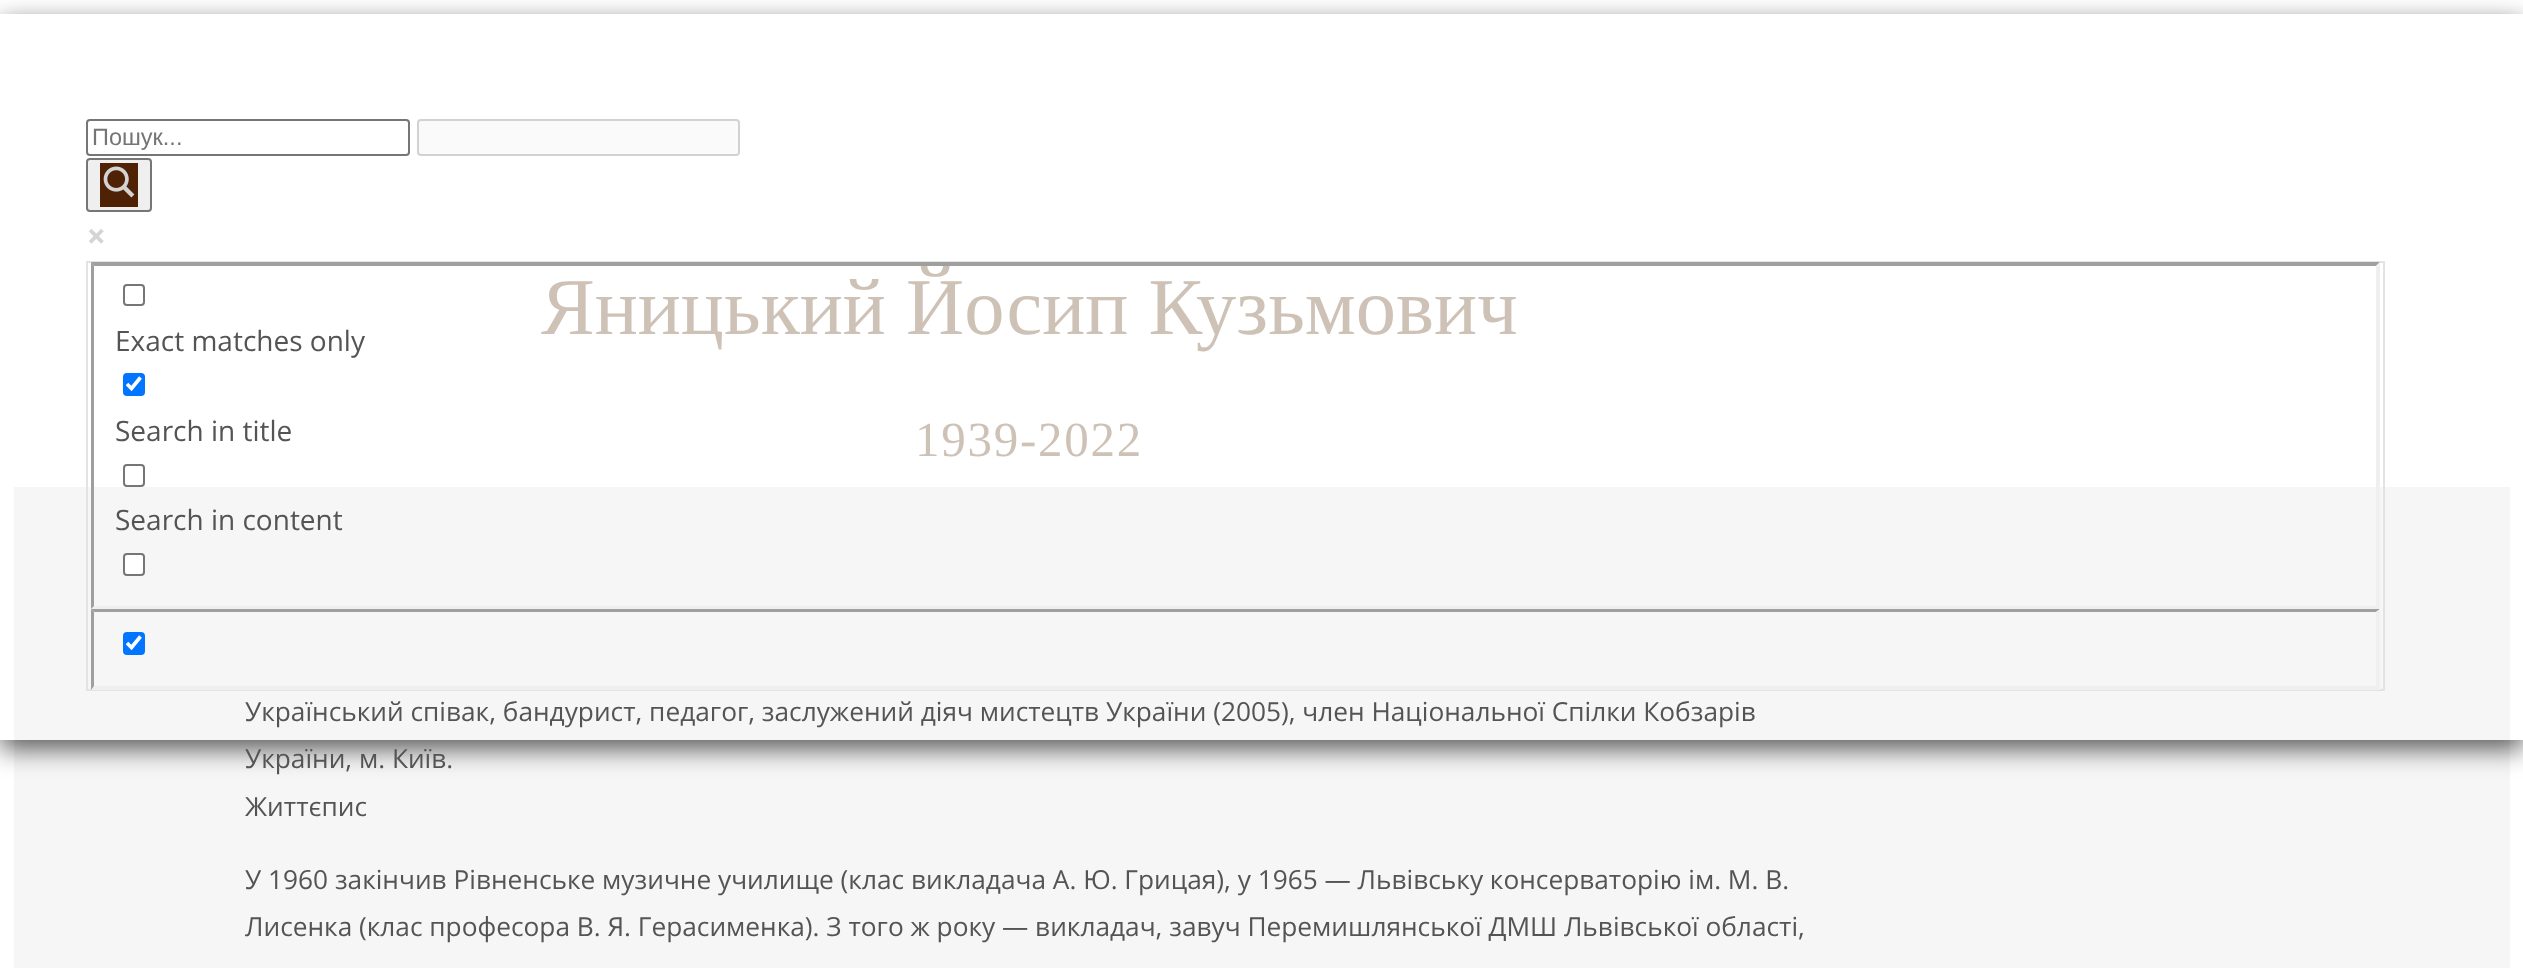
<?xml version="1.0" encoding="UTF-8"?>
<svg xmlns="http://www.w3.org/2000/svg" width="2523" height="968">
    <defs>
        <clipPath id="clip1"><path d="M 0 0 H 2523 V 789 H 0 Z M 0 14 H 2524 V 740 H 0 Z" clip-rule="evenodd"/></clipPath>
        <filter id="blur1" x="-50%" y="-200%" width="200%" height="500%"><feGaussianBlur stdDeviation="13"/></filter>
    </defs>
    <rect width="100%" height="100%" fill="#FFFFFF"/>
    <rect x="14" y="487" width="2496" height="481" fill="#F6F6F6"/>
    <g clip-path="url(#clip1)">
        <rect x="0" y="23" width="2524" height="726" fill="#000000" fill-opacity="0.64" filter="url(#blur1)"/>
    </g>
    <rect x="87" y="120" width="322" height="35" rx="3" fill="none" stroke="#767676" stroke-width="2"/>
    <text x="92" y="145" font-family="Liberation Sans" font-size="23.5" fill="#757575">Пошук...</text>
    <rect x="418" y="120" width="321" height="35" rx="3" fill="#FAFAFA" stroke="#D2D2D2" stroke-width="2"/>
    <rect x="87" y="159" width="64" height="52" rx="3" fill="#EFEFEF" stroke="#767676" stroke-width="2"/>
    <rect x="100" y="163" width="38" height="44" fill="#4F2206"/>
    <image x="103" y="166" width="32" height="32" href="img_01.png"/>
    <image x="89" y="229" width="15" height="15" href="img_02.png"/>
    <rect x="87" y="262" width="2297" height="428" fill="none" stroke="#E3E3E3" stroke-width="2"/>
    <text x="541" y="334" font-family="Liberation Serif" font-size="80.5" fill="#CEC2B7">Яницький Йосип Кузьмович</text>
    <path d="M 91 262 H 2380 L 2376 266 H 94 Z" fill="#9F9F9F"/>
    <path d="M 2380 262 V 609 L 2376 606 V 266 Z" fill="#EFEFEF"/>
    <path d="M 2380 609 H 91 L 94 606 H 2376 Z" fill="#EFEFEF"/>
    <path d="M 91 609 V 262 L 94 266 V 606 Z" fill="#9F9F9F"/>
    <rect x="124" y="285" width="20" height="20" rx="3" fill="none" stroke="#767676" stroke-width="2"/>
    <text x="115" y="351" font-family="Open Sans" font-size="28" fill="#545454">Exact matches only</text>
    <rect x="123" y="373" width="22" height="23" rx="4" fill="#0075FF"/>
    <path d="M 127 384 L 131.5 388.5 L 140.5 377.5" fill="none" stroke="#FFFFFF" stroke-width="3.6"/>
    <text x="115" y="441" font-family="Open Sans" font-size="28" fill="#545454">Search in title</text>
    <rect x="124" y="465" width="20" height="21" rx="3" fill="none" stroke="#767676" stroke-width="2"/>
    <text x="115" y="530" font-family="Open Sans" font-size="28" fill="#545454">Search in content</text>
    <rect x="124" y="554" width="20" height="21" rx="3" fill="#FFFFFF" stroke="#767676" stroke-width="2"/>
    <path d="M 91 609 H 2380 L 2376 612 H 94 Z" fill="#9F9F9F"/>
    <path d="M 2380 609 V 690 L 2376 686 V 612 Z" fill="#EFEFEF"/>
    <path d="M 2380 690 H 91 L 94 686 H 2376 Z" fill="#EFEFEF"/>
    <path d="M 91 690 V 609 L 94 612 V 686 Z" fill="#9F9F9F"/>
    <rect x="123" y="632" width="22" height="23" rx="4" fill="#0075FF"/>
    <path d="M 127 643 L 131.5 647.5 L 140.5 636.5" fill="none" stroke="#FFFFFF" stroke-width="3.6"/>
    <text x="915" y="456" font-family="Liberation Serif" font-size="49" letter-spacing="1.75" fill="#CEC2B7">1939-2022</text>
    <text font-family="Open Sans" font-size="26.25" fill="#545454">
        <tspan x="245" y="721">Український співак, бандурист, педагог, заслужений діяч мистецтв України (2005), член Національної Спілки Кобзарів</tspan>
        <tspan x="245" y="768">України, м. Київ.</tspan>
        <tspan x="245" y="816">Життєпис</tspan>
    </text>
    <text font-family="Open Sans" font-size="26.25" fill="#545454">
        <tspan x="245" y="889">У 1960 закінчив Рівненське музичне училище (клас викладача А. Ю. Грицая), у 1965 — Львівську консерваторію ім. М. В.</tspan>
        <tspan x="245" y="936">Лисенка (клас професора В. Я. Герасименка). З того ж року — викладач, завуч Перемишлянської ДМШ Львівської області,</tspan>
    </text>
</svg>
